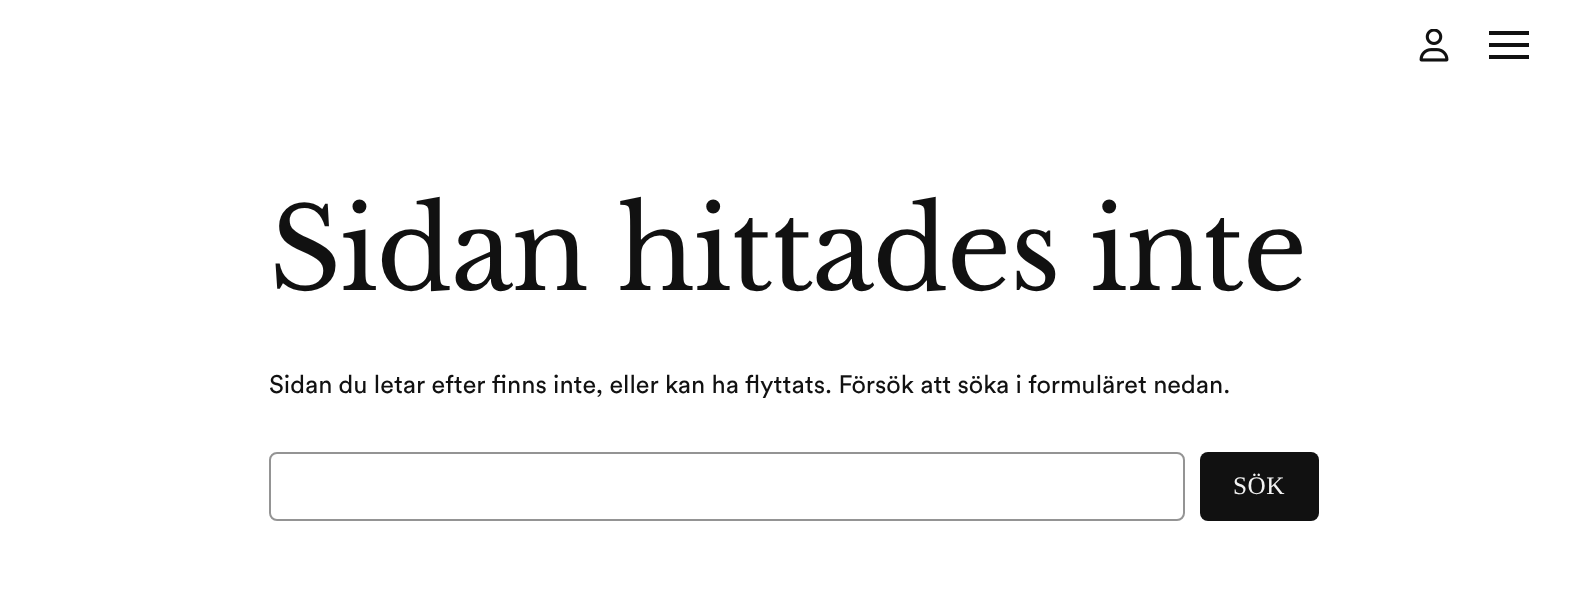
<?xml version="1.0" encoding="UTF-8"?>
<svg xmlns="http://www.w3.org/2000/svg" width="1587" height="596">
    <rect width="100%" height="100%" fill="#FFFFFF"/>
    <image x="1419" y="29" width="30" height="33" href="img_01.png"/>
    <rect x="1489" y="31" width="40" height="4" fill="#111111"/>
    <rect x="1489" y="43" width="40" height="4" fill="#111111"/>
    <rect x="1489" y="55" width="40" height="4" fill="#111111"/>
    <text x="269" y="290" font-family="Libre Baskerville" font-size="112.5" letter-spacing="-1.7" fill="#111111">Sidan hittades inte</text>
    <text x="269" y="393" font-family="Circular" font-size="25.2" fill="#111111">Sidan du letar efter finns inte, eller kan ha flyttats. Försök att söka i formuläret nedan.</text>
    <rect x="270" y="453" width="914" height="67" rx="7" fill="none" stroke="#949494" stroke-width="2"/>
    <rect x="1200" y="452" width="119" height="69" rx="8" fill="#111111"/>
    <text x="1233" y="494" font-family="Liberation Serif" font-size="25.2" letter-spacing="0.5" fill="#F3F3F3">SÖK</text>
</svg>
